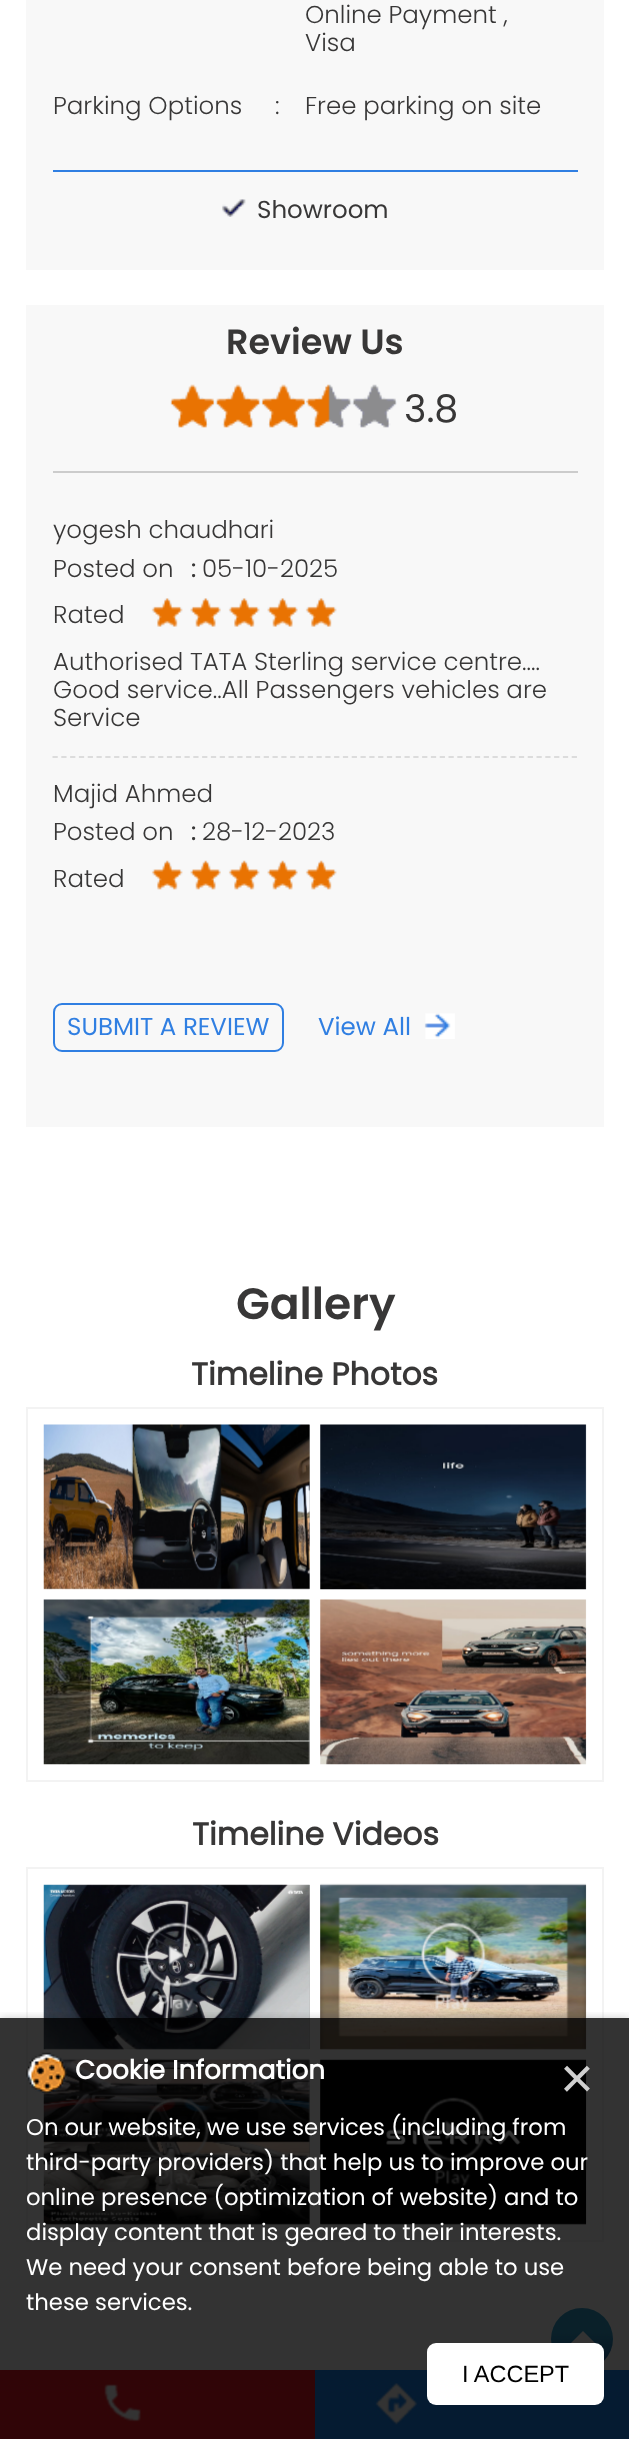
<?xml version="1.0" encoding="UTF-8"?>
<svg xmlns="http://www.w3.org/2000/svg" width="629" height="2439">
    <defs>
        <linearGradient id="g1" gradientUnits="userSpaceOnUse" x1="582" y1="2308" x2="582" y2="2370"><stop offset="0" stop-color="#34A1CC"/><stop offset="0.38" stop-color="#34A1CC"/><stop offset="1" stop-color="#1C59A3"/></linearGradient>
        <clipPath id="clip1"><rect x="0" y="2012" width="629" height="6"/></clipPath>
        <filter id="blur1" x="-50%" y="-200%" width="200%" height="500%"><feGaussianBlur stdDeviation="4.5"/></filter>
    </defs>
    <rect width="100%" height="100%" fill="#FFFFFF"/>
    <rect x="26" y="0" width="578" height="270" fill="#F8F8F8"/>
    <text font-family="Poppins" font-size="24.5" font-weight="300" fill="#383737">
        <tspan x="305" y="23">Online Payment ,</tspan>
        <tspan x="305" y="51">Visa</tspan>
    </text>
    <text x="53" y="114" font-family="Poppins" font-size="24.5" font-weight="300" fill="#383737">Parking Options</text>
    <text x="275" y="114" font-family="Poppins" font-size="24.5" font-weight="300" fill="#383737">:</text>
    <text x="305" y="114" font-family="Poppins" font-size="24.5" font-weight="300" fill="#383737">Free parking on site</text>
    <rect x="53" y="170" width="525" height="2" fill="#307FE2"/>
    <image x="222" y="199" width="24" height="18" href="img_01.png"/>
    <text x="257" y="218" font-family="Poppins" font-size="24.5" fill="#383737">Showroom</text>
    <rect x="0" y="2370" width="315" height="69" fill="#ED1C24"/>
    <image x="104" y="2384" width="37" height="38" href="img_02.png"/>
    <rect x="315" y="2370" width="314" height="69" fill="#1985F2"/>
    <image x="375" y="2383" width="43" height="42" href="img_03.png"/>
    <rect x="26" y="305" width="578" height="822" fill="#F8F8F8"/>
    <rect x="53" y="471" width="525" height="2" fill="#CCCCCC"/>
    <text x="226" y="354" font-family="Poppins" font-size="35" font-weight="600" fill="#383737">Review Us</text>
    <image x="170" y="384" width="45" height="44" href="img_04.png"/>
    <image x="215" y="384" width="46" height="44" href="img_05.png"/>
    <image x="261" y="384" width="45" height="44" href="img_06.png"/>
    <image x="306" y="384" width="46" height="44" href="img_07.png"/>
    <image x="352" y="384" width="45" height="44" href="img_08.png"/>
    <text x="404" y="422" font-family="Poppins" font-size="38" fill="#383737">3.8</text>
    <path d="M 52.5 757 H 577.5" fill="none" stroke="#DCDCDC" stroke-width="1.8" stroke-dasharray="5.25 3.55"/>
    <text font-family="Poppins" font-size="24.5" font-weight="300" fill="#383737">
        <tspan x="53" y="538">yogesh chaudhari</tspan>
        <tspan x="53" y="577">Posted on</tspan>
    </text>
    <text x="191" y="577" font-family="Poppins" font-size="24.5" font-weight="700" fill="#383737">:</text>
    <text x="202" y="577" font-family="Poppins" font-size="24.5" font-weight="300" fill="#383737">05-10-2025</text>
    <text x="53" y="623" font-family="Poppins" font-size="24.5" font-weight="300" fill="#383737">Rated</text>
    <image x="151" y="598" width="32" height="29" href="img_09.png"/>
    <image x="190" y="598" width="31" height="29" href="img_10.png"/>
    <image x="228" y="598" width="32" height="29" href="img_09.png"/>
    <image x="267" y="598" width="31" height="29" href="img_11.png"/>
    <image x="305" y="598" width="32" height="29" href="img_09.png"/>
    <text font-family="Poppins" font-size="24.5" font-weight="300" fill="#383737">
        <tspan x="53" y="670">Authorised TATA Sterling service centre....</tspan>
        <tspan x="53" y="698">Good service..All Passengers vehicles are</tspan>
        <tspan x="53" y="726">Service</tspan>
    </text>
    <text font-family="Poppins" font-size="24.5" font-weight="300" fill="#383737">
        <tspan x="53" y="802">Majid Ahmed</tspan>
        <tspan x="53" y="840">Posted on</tspan>
    </text>
    <text x="191" y="840" font-family="Poppins" font-size="24.5" font-weight="700" fill="#383737">:</text>
    <text x="202" y="840" font-family="Poppins" font-size="24.5" font-weight="300" fill="#383737">28-12-2023</text>
    <text x="53" y="887" font-family="Poppins" font-size="24.5" font-weight="300" fill="#383737">Rated</text>
    <image x="151" y="860" width="32" height="30" href="img_12.png"/>
    <image x="190" y="860" width="31" height="30" href="img_13.png"/>
    <image x="228" y="860" width="32" height="30" href="img_12.png"/>
    <image x="267" y="860" width="31" height="30" href="img_14.png"/>
    <image x="305" y="860" width="32" height="30" href="img_12.png"/>
    <rect x="54" y="1004" width="229" height="47" rx="8" fill="none" stroke="#307FE2" stroke-width="2"/>
    <text x="67" y="1035" font-family="Poppins" font-size="24.5" fill="#307FE2">SUBMIT A REVIEW</text>
    <text x="318" y="1035" font-family="Poppins" font-size="24.5" fill="#307FE2">View All</text>
    <image x="424" y="1013" width="31" height="26" href="img_15.png"/>
    <text x="236" y="1319" font-family="Poppins" font-size="44" font-weight="600" fill="#383737">Gallery</text>
    <text x="191" y="1385" font-family="'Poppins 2'" font-size="31.5" font-weight="700" fill="#383737">Timeline Photos</text>
    <rect x="27" y="1408" width="576" height="373" fill="none" stroke="#F3F3F3" stroke-width="2"/>
    <rect x="44" y="1425" width="266" height="164" fill="#BBBBBB"/>
    <image x="43" y="1424" width="267" height="166" href="img_16.png"/>
    <image x="320" y="1424" width="267" height="166" href="img_17.png"/>
    <rect x="308" y="1600" width="2" height="164" fill="#BBBBBB"/>
    <image x="43" y="1599" width="267" height="166" href="img_18.png"/>
    <image x="320" y="1599" width="267" height="166" href="img_19.png"/>
    <text x="192" y="1845" font-family="'Poppins 2'" font-size="31.5" font-weight="700" fill="#383737">Timeline Videos</text>
    <rect x="27" y="1868" width="576" height="373" fill="none" stroke="#F3F3F3" stroke-width="2"/>
    <rect x="44" y="1885" width="266" height="164" fill="#BBBBBB"/>
    <image x="43" y="1884" width="267" height="166" href="img_20.png"/>
    <image x="144" y="1922" width="65" height="89" href="img_21.png"/>
    <rect x="320" y="1885" width="266" height="164" fill="#BBBBBB"/>
    <image x="320" y="1883" width="267" height="167" href="img_22.png"/>
    <image x="421" y="1922" width="65" height="89" href="img_23.png"/>
    <rect x="44" y="2060" width="266" height="164" fill="#BBBBBB"/>
    <image x="43" y="2058" width="267" height="167" href="img_24.png"/>
    <image x="144" y="2097" width="65" height="89" href="img_25.png"/>
    <rect x="320" y="2060" width="266" height="164" fill="#BBBBBB"/>
    <image x="320" y="2059" width="267" height="166" href="img_26.png"/>
    <image x="421" y="2097" width="65" height="89" href="img_27.png"/>
    <circle cx="582" cy="2339" r="31" fill="url(#g1)"/>
    <path d="M 597 2345 H 569 L 583 2331 Z" fill="#FFFFFF"/>
    <g clip-path="url(#clip1)">
        <rect x="0" y="2018" width="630" height="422" fill="#000000" fill-opacity="0.2" filter="url(#blur1)"/>
    </g>
    <rect x="0" y="2018" width="629" height="421" fill="#000000" fill-opacity="0.8"/>
    <image x="26" y="2052" width="41" height="41" href="img_28.png"/>
    <text x="75" y="2079" font-family="'Poppins 2'" font-size="26.25" font-weight="700" fill="#FFFFFF">Cookie Information</text>
    <text x="560" y="2098" font-family="Liberation Sans" font-size="58" fill="#D0D0D0">×</text>
    <text font-family="Poppins" font-size="22.75" fill="#FFFFFF">
        <tspan x="26" y="2135">On our website, we use services (including from</tspan>
        <tspan x="26" y="2170">third-party providers) that help us to improve our</tspan>
        <tspan x="26" y="2205">online presence (optimization of website) and to</tspan>
        <tspan x="26" y="2240">display content that is geared to their interests.</tspan>
        <tspan x="26" y="2275">We need your consent before being able to use</tspan>
        <tspan x="26" y="2310">these services.</tspan>
    </text>
    <rect x="427" y="2343" width="177" height="62" rx="9" fill="#FFFFFF"/>
    <text x="462" y="2382" font-family="Liberation Sans" font-size="23.5" fill="#000000">I ACCEPT</text>
</svg>
